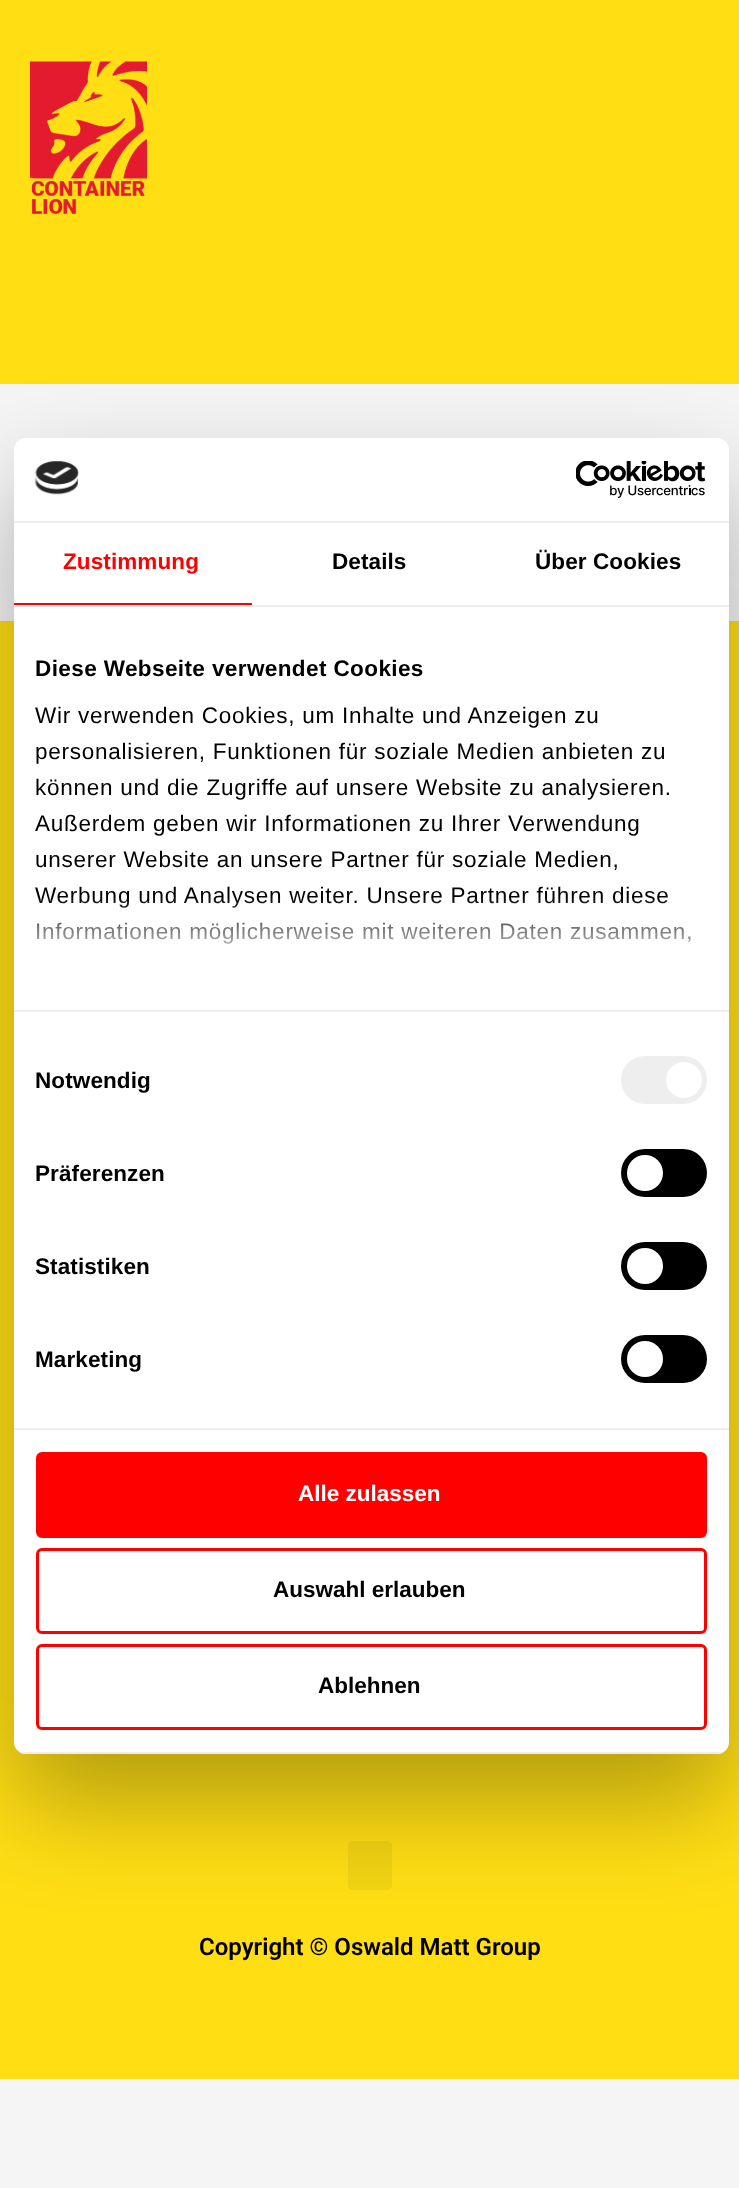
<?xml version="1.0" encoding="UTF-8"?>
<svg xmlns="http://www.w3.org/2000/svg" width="739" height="2188">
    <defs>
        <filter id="blur1" x="-50%" y="-200%" width="200%" height="500%"><feGaussianBlur stdDeviation="51"/></filter>
        <linearGradient id="g1" gradientUnits="userSpaceOnUse" x1="361" y1="1009" x2="361" y2="896"><stop offset="0" stop-color="#FFFFFF"/><stop offset="0.5" stop-color="#FFFFFF" stop-opacity="0.8"/><stop offset="1" stop-color="#FFFFFF" stop-opacity="0"/></linearGradient>
        <clipPath id="clip1"><rect x="14" y="438" width="715" height="1316" rx="12"/></clipPath>
    </defs>
    <rect width="100%" height="100%" fill="#F5F5F5"/>
    <rect x="0" y="0" width="739" height="384" fill="#FFDE14"/>
    <image x="30" y="61" width="117" height="153" href="img_01.png"/>
    <rect x="0" y="621" width="739" height="1458" fill="#FFDE14"/>
    <rect x="348" y="1841" width="44" height="49" rx="5" fill="#F2D313"/>
    <rect x="14" y="486" width="715" height="1316" rx="12" fill="#000000" fill-opacity="0.3" filter="url(#blur1)"/>
    <rect x="14" y="438" width="715" height="1316" rx="12" fill="#FFFFFF"/>
    <rect x="14" y="521" width="715" height="2" fill="#EEEEEE"/>
    <image x="34" y="461" width="45" height="34" href="img_02.png"/>
    <image x="576" y="461" width="130" height="37" href="img_03.png"/>
    <rect x="14" y="605" width="715" height="2" fill="#EEEEEE"/>
    <rect x="14" y="603" width="238" height="2" fill="#FF0000"/>
    <text x="63" y="569" font-family="Liberation Sans" font-size="22.5" font-weight="700" letter-spacing="0.1" fill="#FF0000">Zustimmung</text>
    <text x="332" y="569" font-family="Liberation Sans" font-size="22.5" font-weight="700" letter-spacing="0.1" fill="#000000">Details</text>
    <text x="535" y="569" font-family="Liberation Sans" font-size="22.5" font-weight="700" letter-spacing="0.1" fill="#000000">Über Cookies</text>
    <rect x="14" y="1010" width="715" height="2" fill="#EEEEEE"/>
    <text x="35" y="676" font-family="Liberation Sans" font-size="22.5" font-weight="700" letter-spacing="0.4" fill="#000000">Diese Webseite verwendet Cookies</text>
    <text font-family="Liberation Sans" font-size="22.5" letter-spacing="0.75" fill="#000000">
        <tspan x="35" y="723">Wir verwenden Cookies, um Inhalte und Anzeigen zu</tspan>
        <tspan x="35" y="759">personalisieren, Funktionen für soziale Medien anbieten zu</tspan>
        <tspan x="35" y="795">können und die Zugriffe auf unsere Website zu analysieren.</tspan>
        <tspan x="35" y="831">Außerdem geben wir Informationen zu Ihrer Verwendung</tspan>
        <tspan x="35" y="867">unserer Website an unsere Partner für soziale Medien,</tspan>
        <tspan x="35" y="903">Werbung und Analysen weiter. Unsere Partner führen diese</tspan>
        <tspan x="35" y="939">Informationen möglicherweise mit weiteren Daten zusammen,</tspan>
    </text>
    <rect x="36" y="898" width="654" height="46" fill="url(#g1)"/>
    <rect x="14" y="1428" width="715" height="2" fill="#EEEEEE"/>
    <text x="35" y="1088" font-family="Liberation Sans" font-size="22.5" font-weight="700" letter-spacing="0.1" fill="#000000">Notwendig</text>
    <rect x="621" y="1056" width="86" height="48" rx="24" fill="#EEEEEE"/>
    <circle cx="684" cy="1080" r="18" fill="#FFFFFF"/>
    <text x="35" y="1181" font-family="Liberation Sans" font-size="22.5" font-weight="700" letter-spacing="0.1" fill="#000000">Präferenzen</text>
    <rect x="621" y="1149" width="86" height="48" rx="24" fill="#000000"/>
    <circle cx="645" cy="1173" r="18" fill="#FFFFFF"/>
    <text x="35" y="1274" font-family="Liberation Sans" font-size="22.5" font-weight="700" letter-spacing="0.1" fill="#000000">Statistiken</text>
    <rect x="621" y="1242" width="86" height="48" rx="24" fill="#000000"/>
    <circle cx="645" cy="1266" r="18" fill="#FFFFFF"/>
    <text x="35" y="1367" font-family="Liberation Sans" font-size="22.5" font-weight="700" letter-spacing="0.1" fill="#000000">Marketing</text>
    <rect x="621" y="1335" width="86" height="48" rx="24" fill="#000000"/>
    <circle cx="645" cy="1359" r="18" fill="#FFFFFF"/>
    <g clip-path="url(#clip1)">
        <rect x="14" y="1752" width="715" height="2" fill="#EEEEEE"/>
    </g>
    <rect x="37.5" y="1453.5" width="668" height="83" rx="4.5" fill="#FF0000" stroke="#FF0000" stroke-width="3"/>
    <text x="298" y="1501" font-family="Liberation Sans" font-size="22.5" font-weight="700" fill="#FFFFFF">Alle zulassen</text>
    <rect x="37.5" y="1549.5" width="668" height="83" rx="4.5" fill="none" stroke="#FF0000" stroke-width="3"/>
    <text x="273" y="1597" font-family="Liberation Sans" font-size="22.5" font-weight="700" fill="#000000">Auswahl erlauben</text>
    <rect x="37.5" y="1645.5" width="668" height="83" rx="4.5" fill="none" stroke="#FF0000" stroke-width="3"/>
    <text x="318" y="1693" font-family="Liberation Sans" font-size="22.5" font-weight="700" fill="#000000">Ablehnen</text>
    <text x="199" y="1955" font-family="Roboto" font-size="24" font-weight="600" fill="#000000">Copyright © Oswald Matt Group</text>
</svg>
